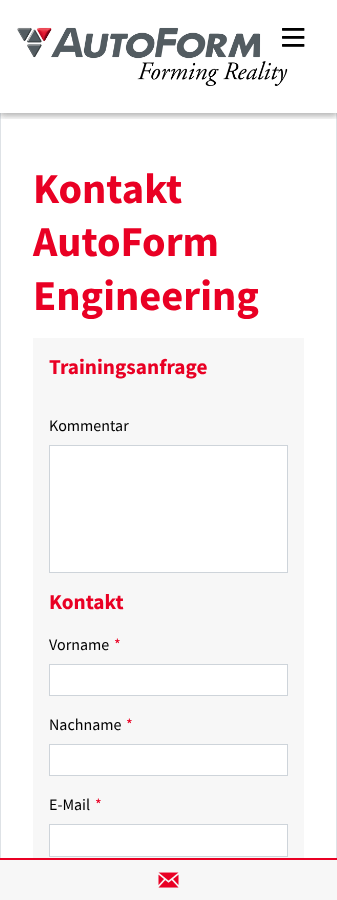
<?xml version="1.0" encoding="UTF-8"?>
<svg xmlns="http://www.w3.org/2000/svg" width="337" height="900">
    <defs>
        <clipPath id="clip1"><rect x="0" y="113" width="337" height="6"/></clipPath>
        <filter id="blur1" x="-50%" y="-200%" width="200%" height="500%"><feGaussianBlur stdDeviation="3"/></filter>
    </defs>
    <rect width="100%" height="100%" fill="#FFFFFF"/>
    <rect x="336" y="113" width="1" height="745" fill="#DEE2E6"/>
    <rect x="0" y="113" width="1" height="745" fill="#DEE2E6"/>
    <g clip-path="url(#clip1)">
        <rect x="0" y="3" width="337" height="113" fill="#000000" fill-opacity="0.16" filter="url(#blur1)"/>
        <rect x="0" y="3" width="337" height="113" fill="#000000" fill-opacity="0.16" filter="url(#blur1)"/>
    </g>
    <image x="17" y="27" width="271" height="60" href="img_01.png"/>
    <image x="282" y="28" width="23" height="19" href="img_02.png"/>
    <text font-family="Source Sans Pro" font-size="42.5" font-weight="700" fill="#E90024">
        <tspan x="33" y="203">Kontakt</tspan>
        <tspan x="33" y="256">AutoForm</tspan>
        <tspan x="33" y="310">Engineering</tspan>
    </text>
    <rect x="33" y="338" width="271" height="520" fill="#F7F7F7"/>
    <text x="49" y="374" font-family="Source Sans Pro" font-size="21.25" font-weight="700" fill="#E90024">Trainingsanfrage</text>
    <text x="49" y="431" font-family="Source Sans Pro" font-size="16" fill="#000000">Kommentar</text>
    <rect x="49.5" y="445.5" width="238" height="127" fill="#FFFFFF" stroke="#CED4DA"/>
    <text x="49" y="609" font-family="Source Sans Pro" font-size="21.25" font-weight="700" fill="#E90024">Kontakt</text>
    <text x="49" y="650" font-family="Source Sans Pro" font-size="16" fill="#000000">Vorname</text>
    <text x="114" y="650" font-family="Source Sans Pro" font-size="16" fill="#E90024">*</text>
    <rect x="49.5" y="664.5" width="238" height="31" fill="#FFFFFF" stroke="#CED4DA"/>
    <text x="49" y="730" font-family="Source Sans Pro" font-size="16" fill="#000000">Nachname</text>
    <text x="126" y="730" font-family="Source Sans Pro" font-size="16" fill="#E90024">*</text>
    <rect x="49.5" y="744.5" width="238" height="31" fill="#FFFFFF" stroke="#CED4DA"/>
    <text x="49" y="810" font-family="Source Sans Pro" font-size="16" fill="#000000">E-Mail</text>
    <text x="95" y="810" font-family="Source Sans Pro" font-size="16" fill="#E90024">*</text>
    <rect x="49.5" y="824.5" width="238" height="32" fill="#FFFFFF" stroke="#CED4DA"/>
    <rect x="0" y="858" width="337" height="2" fill="#E90024"/>
    <rect x="0" y="860" width="337" height="40" fill="#F7F7F7"/>
    <image x="158" y="872" width="21" height="16" href="img_03.png"/>
</svg>
